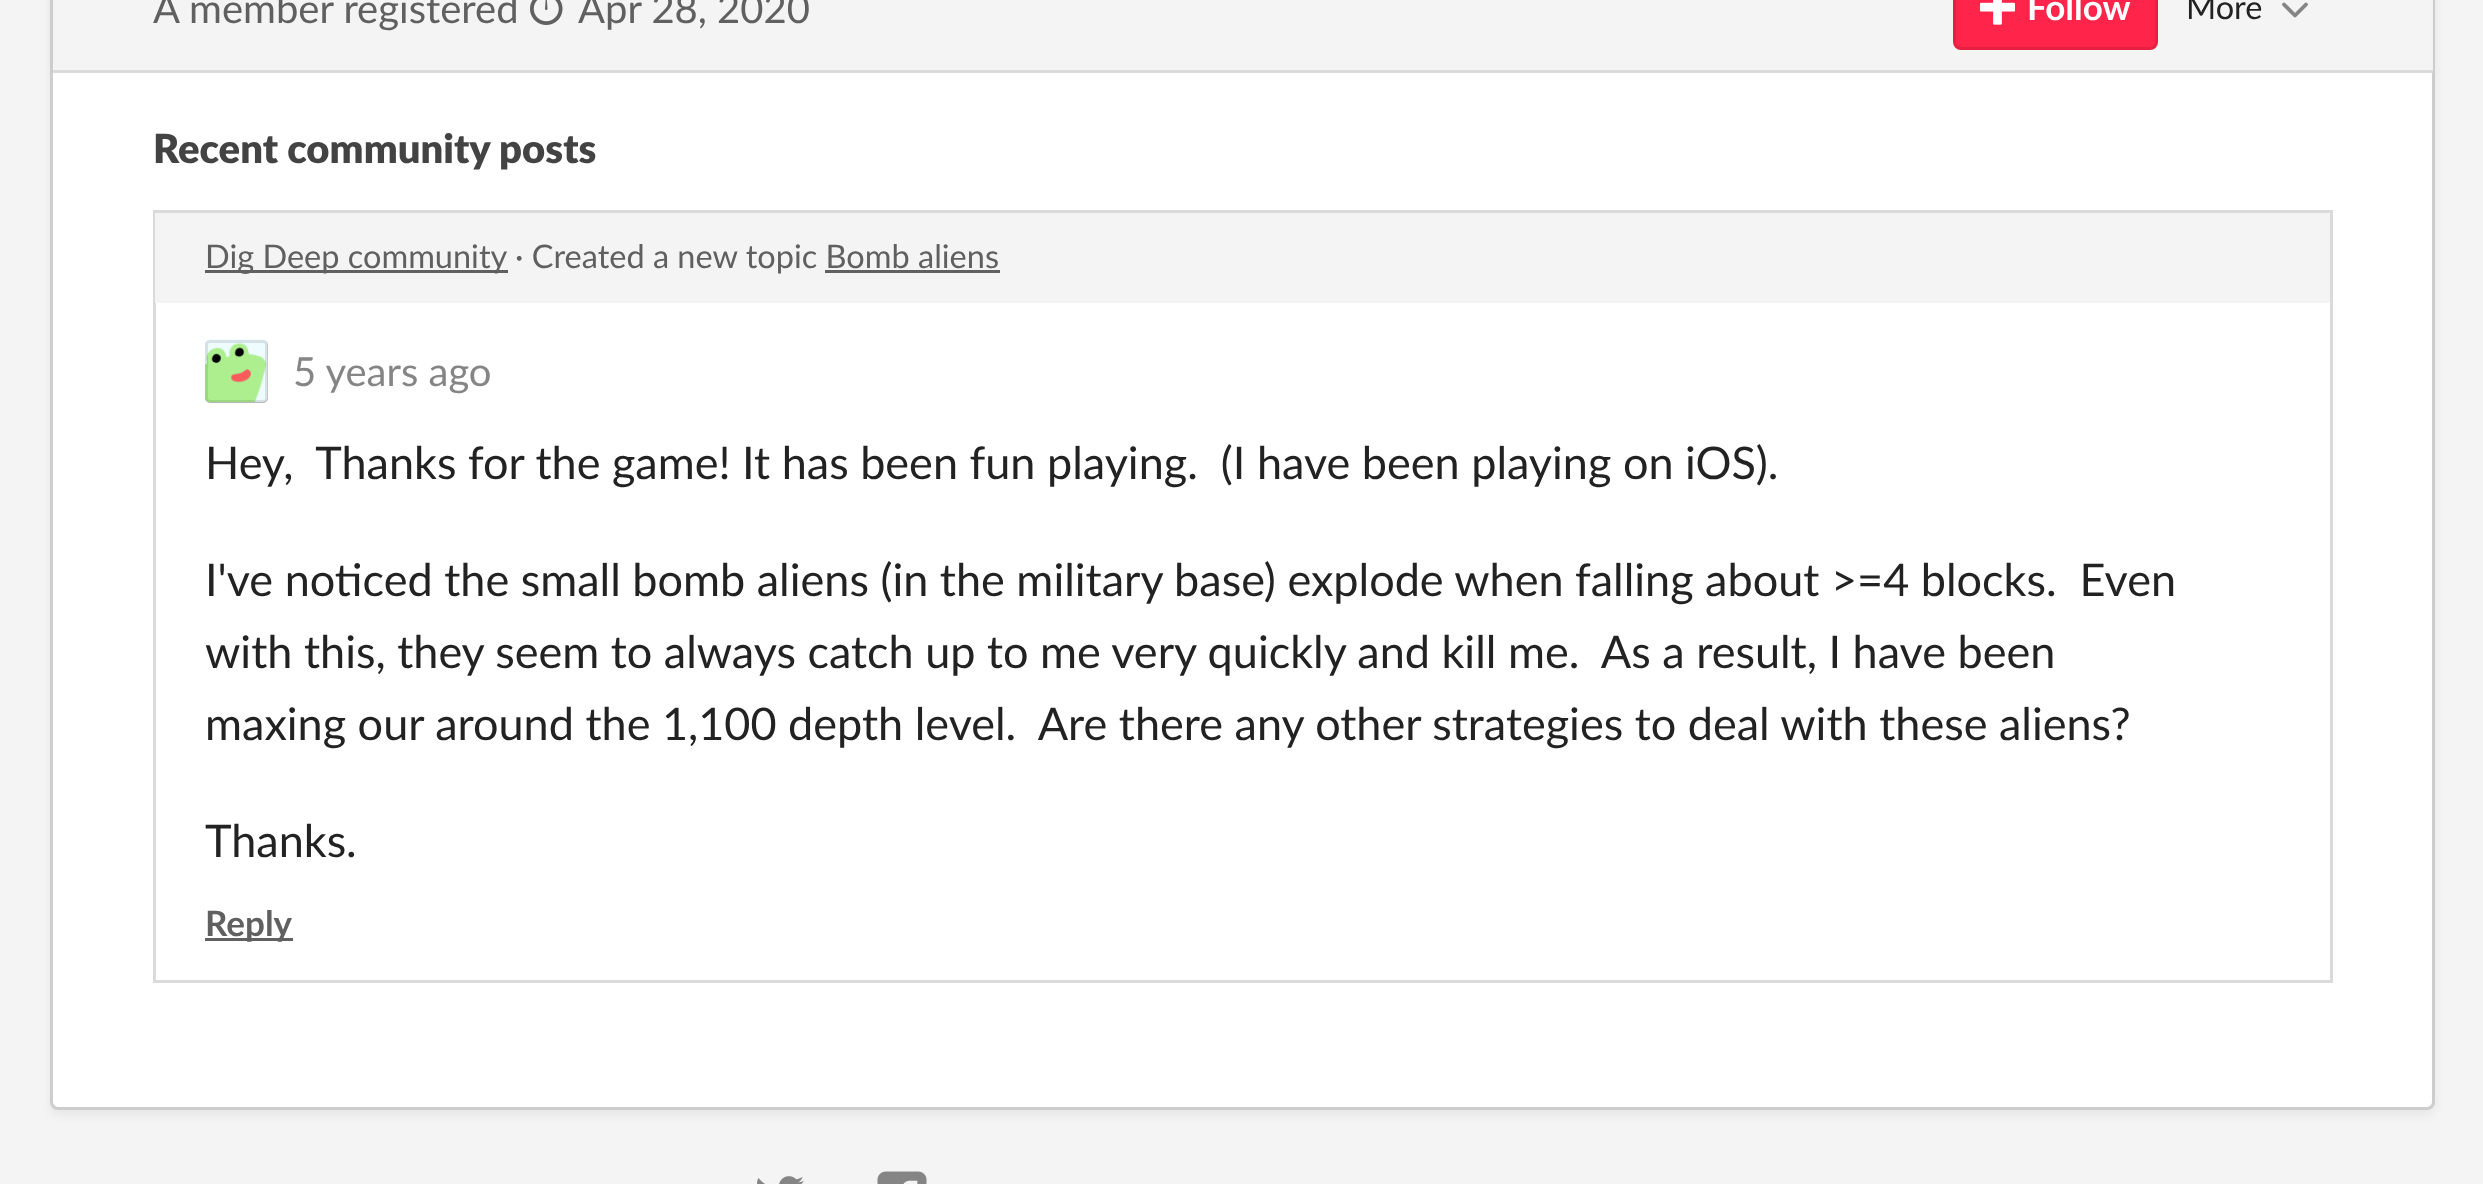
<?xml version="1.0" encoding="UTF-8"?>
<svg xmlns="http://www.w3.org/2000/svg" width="2483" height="1184">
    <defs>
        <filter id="blur1" x="-50%" y="-200%" width="200%" height="500%"><feGaussianBlur stdDeviation="5"/></filter>
    </defs>
    <rect width="100%" height="100%" fill="#F4F4F4"/>
    <rect x="50" y="-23" width="2385" height="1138" rx="8" fill="#000000" fill-opacity="0.05" filter="url(#blur1)"/>
    <rect x="51.5" y="-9.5" width="2382" height="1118" rx="6.5" fill="#FFFFFF" stroke="#CDCDCD" stroke-width="3"/>
    <rect x="53" y="0" width="2380" height="70" fill="#F4F4F4"/>
    <rect x="53" y="70" width="2380" height="3" fill="#DADADA"/>
    <text x="153" y="23" font-family="Lato" font-size="40" fill="#606060">A member registered</text>
    <image x="530" y="0" width="33" height="25" href="img_01.png"/>
    <text x="578" y="23" font-family="Lato" font-size="40" fill="#606060">Apr 28, 2020</text>
    <rect x="1953" y="-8" width="205" height="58" rx="8" fill="#FF2449"/>
    <rect x="1954.5" y="-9.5" width="202" height="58" rx="6.5" fill="none" stroke="#000000" stroke-opacity="0.1" stroke-width="3"/>
    <image x="1980" y="0" width="35" height="25" href="img_02.png"/>
    <text x="2027" y="20" font-family="Lato" font-size="35" font-weight="700" fill="#FFFFFF">Follow</text>
    <text x="2186" y="19" font-family="Lato" font-size="32.5" fill="#222222">More</text>
    <path d="M 2284 4.5 L 2295 15.5 L 2306 4.5" fill="none" stroke="#858585" stroke-width="3.8" stroke-linecap="round" stroke-linejoin="round"/>
    <text x="153" y="163" font-family="Lato" font-size="40" font-weight="900" fill="#434343">Recent community posts</text>
    <rect x="154.5" y="211.5" width="2177" height="770" fill="none" stroke="#DADADA" stroke-width="3"/>
    <rect x="155" y="213" width="2175" height="90" fill="#F4F4F4"/>
    <rect x="205" y="270" width="303" height="3" fill="#606060"/>
    <text x="205" y="268" font-family="Lato" font-size="32.5" fill="#606060">Dig Deep community</text>
    <text x="515" y="268" font-family="Lato" font-size="32.5" fill="#606060">· Created a new topic Bomb aliens</text>
    <rect x="825" y="270" width="175" height="3" fill="#606060"/>
    <rect x="205" y="340" width="63" height="63" rx="5" fill="#CCCCCC"/>
    <image x="205" y="339" width="63" height="63" href="img_03.png"/>
    <rect x="206.5" y="341.5" width="60" height="60" rx="3.5" fill="none" stroke="#000000" stroke-opacity="0.1" stroke-width="3"/>
    <text x="293" y="386" font-family="Lato" font-size="40" fill="#858585">5 years ago</text>
    <text x="205" y="479" font-family="Lato" font-size="45" fill="#222222" xml:space="preserve">Hey,  Thanks for the game! It has been fun playing.  (I have been playing on iOS).</text>
    <text font-family="Lato" font-size="45" fill="#222222" xml:space="preserve"><tspan x="205" y="596">I've noticed the small bomb aliens (in the military base) explode when falling about &gt;=4 blocks.  Even</tspan><tspan x="205" y="668">with this, they seem to always catch up to me very quickly and kill me.  As a result, I have been</tspan><tspan x="205" y="740">maxing our around the 1,100 depth level.  Are there any other strategies to deal with these aliens?</tspan></text>
    <text x="205" y="857" font-family="Lato" font-size="45" fill="#222222">Thanks.</text>
    <rect x="205" y="938" width="88" height="3" fill="#606060"/>
    <text x="205" y="936" font-family="Lato" font-size="35" font-weight="700" fill="#606060">Reply</text>
    <image x="757" y="1176" width="47" height="8" href="img_04.png"/>
    <image x="877" y="1171" width="50" height="13" href="img_05.png"/>
</svg>
